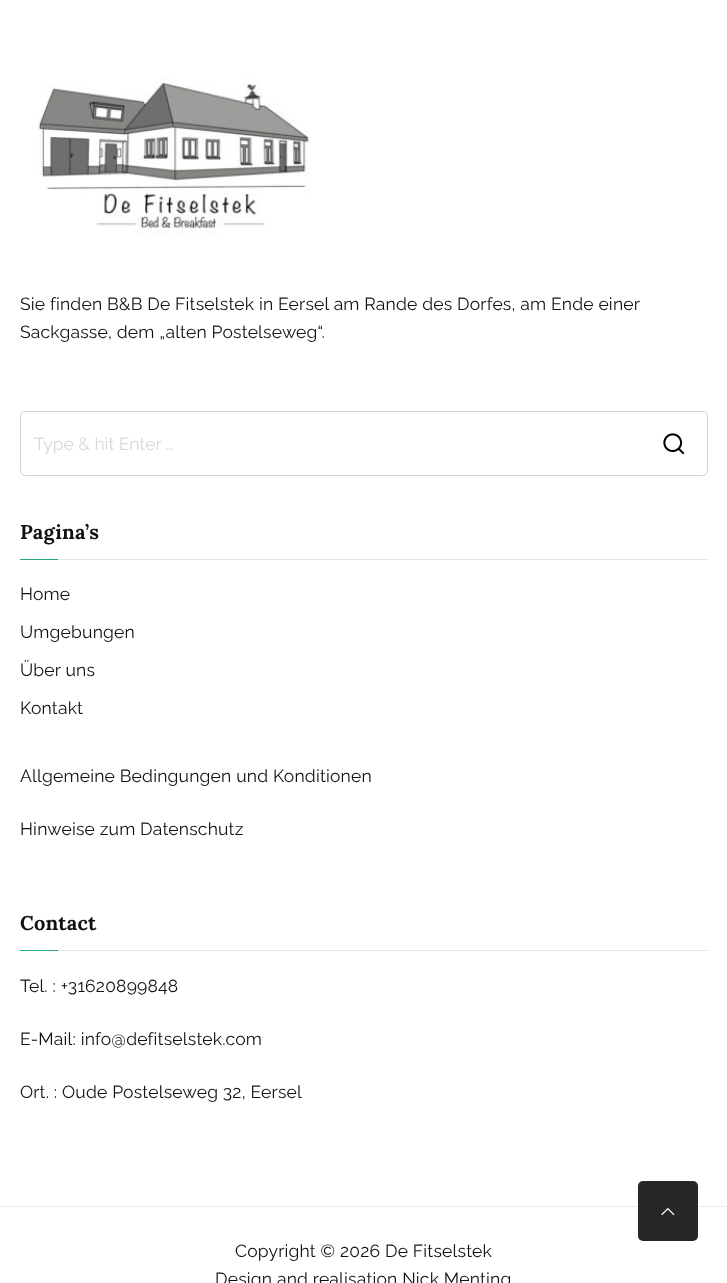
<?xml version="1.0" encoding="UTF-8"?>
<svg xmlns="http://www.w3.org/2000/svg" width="727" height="1283">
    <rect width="100%" height="100%" fill="#FFFFFF"/>
    <image x="37" y="77" width="273" height="158" href="img_01.png"/>
    <text font-family="Raleway" font-size="17.5" letter-spacing="0.2" fill="#111111">
        <tspan x="20" y="310">Sie finden B&amp;B De Fitselstek in Eersel am Rande des Dorfes, am Ende einer</tspan>
        <tspan x="20" y="338">Sackgasse, dem „alten Postelseweg“.</tspan>
    </text>
    <rect x="20.5" y="411.5" width="687" height="64" rx="4.5" fill="none" stroke="#D4D4D8"/>
    <text x="34" y="450" font-family="Raleway" font-size="17.5" fill="#D8D8DC">Type &amp; hit Enter …</text>
    <image x="663" y="433" width="22" height="22" href="img_02.png"/>
    <rect x="58" y="559" width="650" height="1" fill="#E4E4E7"/>
    <text x="20" y="539" font-family="Lora" font-size="20" font-weight="700" letter-spacing="0.2" fill="#111111">Pagina’s</text>
    <rect x="20" y="559" width="38" height="1" fill="#23AB70"/>
    <text x="20" y="600" font-family="Raleway" font-size="17.5" letter-spacing="0.2" fill="#111111">Home</text>
    <text x="20" y="638" font-family="Raleway" font-size="17.5" letter-spacing="0.2" fill="#111111">Umgebungen</text>
    <text x="20" y="676" font-family="Raleway" font-size="17.5" letter-spacing="0.2" fill="#111111">Über uns</text>
    <text x="20" y="714" font-family="Raleway" font-size="17.5" letter-spacing="0.2" fill="#111111">Kontakt</text>
    <text x="20" y="782" font-family="Raleway" font-size="17.5" letter-spacing="0.2" fill="#111111">Allgemeine Bedingungen und Konditionen</text>
    <text x="20" y="835" font-family="Raleway" font-size="17.5" letter-spacing="0.2" fill="#111111">Hinweise zum Datenschutz</text>
    <rect x="58" y="950" width="650" height="1" fill="#E4E4E7"/>
    <text x="20" y="930" font-family="Lora" font-size="20" font-weight="700" letter-spacing="0.2" fill="#111111">Contact</text>
    <rect x="20" y="950" width="38" height="1" fill="#23AB70"/>
    <text x="20" y="992" font-family="Raleway" font-size="17.5" letter-spacing="0.2" fill="#111111">Tel. : +31620899848</text>
    <text x="20" y="1045" font-family="Raleway" font-size="17.5" letter-spacing="0.2" fill="#111111">E-Mail: info@defitselstek.com</text>
    <text x="20" y="1098" font-family="Raleway" font-size="17.5" letter-spacing="0.2" fill="#111111">Ort. : Oude Postelseweg 32, Eersel</text>
    <rect x="0" y="1206" width="727" height="1" fill="#E9ECEF"/>
    <text x="235" y="1257" font-family="Raleway" font-size="17.5" letter-spacing="0.2" fill="#111111">Copyright © 2026 De Fitselstek</text>
    <text x="215" y="1285" font-family="Raleway" font-size="17.5" letter-spacing="0.2" fill="#111111">Design and realisation Nick Menting</text>
    <rect x="638" y="1181" width="60" height="60" rx="5" fill="#27272A"/>
    <image x="661" y="1208" width="14" height="8" href="img_03.png"/>
</svg>
